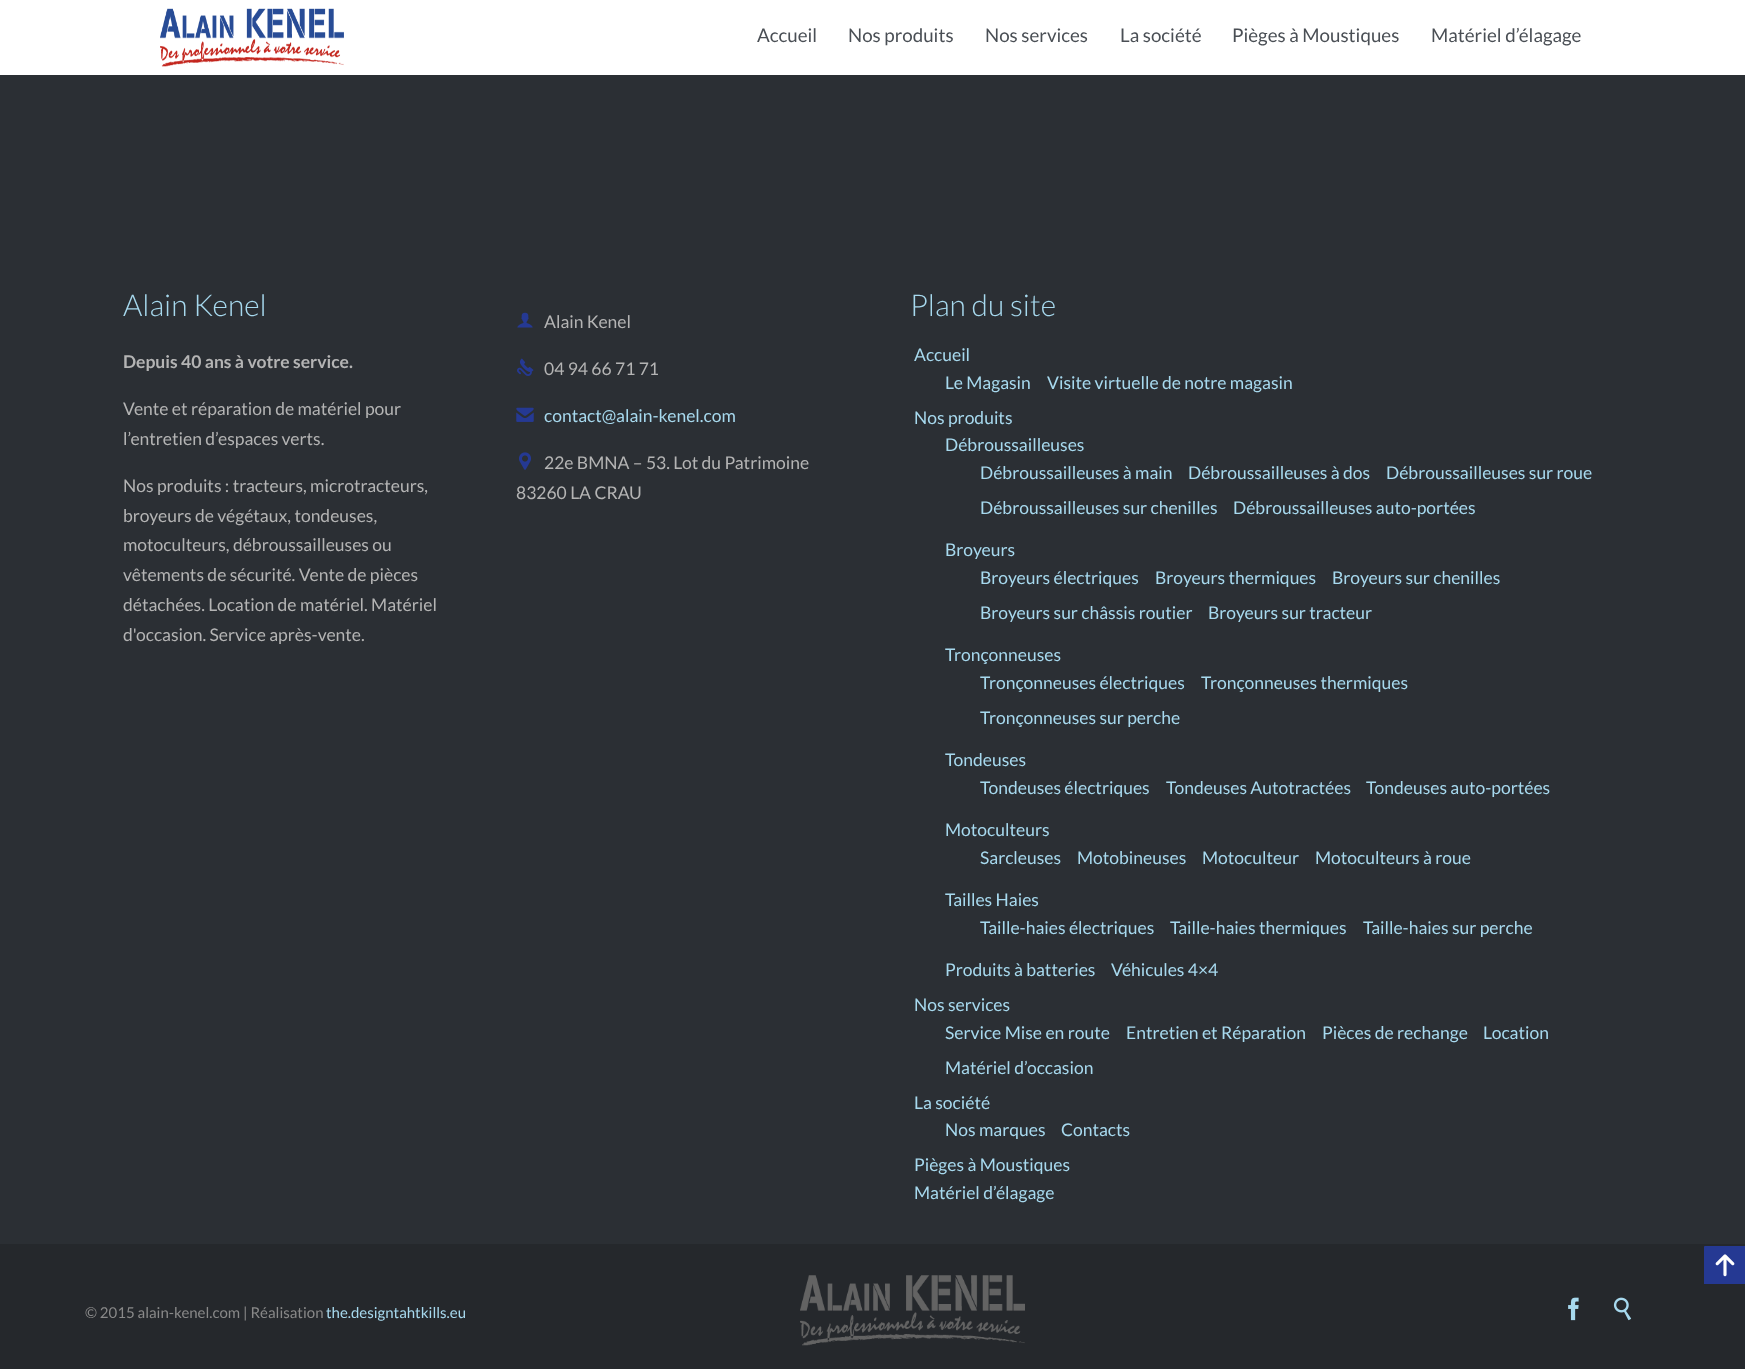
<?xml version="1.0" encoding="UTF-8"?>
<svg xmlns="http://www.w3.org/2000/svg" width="1745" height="1369">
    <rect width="100%" height="100%" fill="#2B2F34"/>
    <rect x="0" y="0" width="1745" height="75" fill="#FFFFFF"/>
    <image x="160" y="8" width="184" height="59" href="img_01.png"/>
    <text x="757" y="42" font-family="Lato" font-size="18.75" fill="#4A4F55">Accueil</text>
    <text x="848" y="42" font-family="Lato" font-size="18.75" fill="#4A4F55">Nos produits</text>
    <text x="985" y="42" font-family="Lato" font-size="18.75" fill="#4A4F55">Nos services</text>
    <text x="1120" y="42" font-family="Lato" font-size="18.75" fill="#4A4F55">La société</text>
    <text x="1232" y="42" font-family="Lato" font-size="18.75" fill="#4A4F55">Pièges à Moustiques</text>
    <text x="1431" y="42" font-family="Lato" font-size="18.75" fill="#4A4F55">Matériel d’élagage</text>
    <text x="123" y="316" font-family="Lato" font-size="30" font-weight="300" fill="#A7D9EE">Alain Kenel</text>
    <text x="123" y="368" font-family="Lato" font-size="17.5" font-weight="700" fill="#B4B4B4">Depuis 40 ans à votre service.</text>
    <text font-family="Lato" font-size="17.5" fill="#B4B4B4">
        <tspan x="123" y="415">Vente et réparation de matériel pour</tspan>
        <tspan x="123" y="445">l’entretien d’espaces verts.</tspan>
    </text>
    <text font-family="Lato" font-size="17.5" fill="#B4B4B4">
        <tspan x="123" y="492">Nos produits : tracteurs, microtracteurs,</tspan>
        <tspan x="123" y="522">broyeurs de végétaux, tondeuses,</tspan>
        <tspan x="123" y="551">motoculteurs, débroussailleuses ou</tspan>
        <tspan x="123" y="581">vêtements de sécurité. Vente de pièces</tspan>
        <tspan x="123" y="611">détachées. Location de matériel. Matériel</tspan>
        <tspan x="123" y="641">d'occasion. Service après-vente.</tspan>
    </text>
    <image x="517" y="312" width="16" height="16" href="img_02.png"/>
    <text x="544" y="328" font-family="Lato" font-size="17.5" fill="#B4B4B4">Alain Kenel</text>
    <image x="517" y="358" width="17" height="18" href="img_03.png"/>
    <text x="544" y="375" font-family="Lato" font-size="17.5" fill="#B4B4B4">04 94 66 71 71</text>
    <image x="516" y="407" width="18" height="15" href="img_04.png"/>
    <text x="544" y="422" font-family="Lato" font-size="17.5" fill="#A7D9EE">contact@alain-kenel.com</text>
    <image x="519" y="452" width="12" height="18" href="img_05.png"/>
    <text x="544" y="469" font-family="Lato" font-size="17.5" fill="#B4B4B4">22e BMNA – 53. Lot du Patrimoine</text>
    <text x="516" y="499" font-family="Lato" font-size="17.5" fill="#B4B4B4">83260 LA CRAU</text>
    <text x="910" y="316" font-family="Lato" font-size="30" font-weight="300" fill="#A7D9EE">Plan du site</text>
    <text x="914" y="361" font-family="Lato" font-size="17.5" fill="#A7D9EE">Accueil</text>
    <text x="945" y="389" font-family="Lato" font-size="17.5" fill="#A7D9EE">Le Magasin</text>
    <text x="1047" y="389" font-family="Lato" font-size="17.5" fill="#A7D9EE">Visite virtuelle de notre magasin</text>
    <text x="914" y="424" font-family="Lato" font-size="17.5" fill="#A7D9EE">Nos produits</text>
    <text x="945" y="451" font-family="Lato" font-size="17.5" fill="#A7D9EE">Débroussailleuses</text>
    <text x="980" y="479" font-family="Lato" font-size="17.5" fill="#A7D9EE">Débroussailleuses à main</text>
    <text x="1188" y="479" font-family="Lato" font-size="17.5" fill="#A7D9EE">Débroussailleuses à dos</text>
    <text x="1386" y="479" font-family="Lato" font-size="17.5" fill="#A7D9EE">Débroussailleuses sur roue</text>
    <text x="980" y="514" font-family="Lato" font-size="17.5" fill="#A7D9EE">Débroussailleuses sur chenilles</text>
    <text x="1233" y="514" font-family="Lato" font-size="17.5" fill="#A7D9EE">Débroussailleuses auto-portées</text>
    <text x="945" y="556" font-family="Lato" font-size="17.5" fill="#A7D9EE">Broyeurs</text>
    <text x="980" y="584" font-family="Lato" font-size="17.5" fill="#A7D9EE">Broyeurs électriques</text>
    <text x="1155" y="584" font-family="Lato" font-size="17.5" fill="#A7D9EE">Broyeurs thermiques</text>
    <text x="1332" y="584" font-family="Lato" font-size="17.5" fill="#A7D9EE">Broyeurs sur chenilles</text>
    <text x="980" y="619" font-family="Lato" font-size="17.5" fill="#A7D9EE">Broyeurs sur châssis routier</text>
    <text x="1208" y="619" font-family="Lato" font-size="17.5" fill="#A7D9EE">Broyeurs sur tracteur</text>
    <text x="945" y="661" font-family="Lato" font-size="17.5" fill="#A7D9EE">Tronçonneuses</text>
    <text x="980" y="689" font-family="Lato" font-size="17.5" fill="#A7D9EE">Tronçonneuses électriques</text>
    <text x="1201" y="689" font-family="Lato" font-size="17.5" fill="#A7D9EE">Tronçonneuses thermiques</text>
    <text x="980" y="724" font-family="Lato" font-size="17.5" fill="#A7D9EE">Tronçonneuses sur perche</text>
    <text x="945" y="766" font-family="Lato" font-size="17.5" fill="#A7D9EE">Tondeuses</text>
    <text x="980" y="794" font-family="Lato" font-size="17.5" fill="#A7D9EE">Tondeuses électriques</text>
    <text x="1166" y="794" font-family="Lato" font-size="17.5" fill="#A7D9EE">Tondeuses Autotractées</text>
    <text x="1366" y="794" font-family="Lato" font-size="17.5" fill="#A7D9EE">Tondeuses auto-portées</text>
    <text x="945" y="836" font-family="Lato" font-size="17.5" fill="#A7D9EE">Motoculteurs</text>
    <text x="980" y="864" font-family="Lato" font-size="17.5" fill="#A7D9EE">Sarcleuses</text>
    <text x="1077" y="864" font-family="Lato" font-size="17.5" fill="#A7D9EE">Motobineuses</text>
    <text x="1202" y="864" font-family="Lato" font-size="17.5" fill="#A7D9EE">Motoculteur</text>
    <text x="1315" y="864" font-family="Lato" font-size="17.5" fill="#A7D9EE">Motoculteurs à roue</text>
    <text x="945" y="906" font-family="Lato" font-size="17.5" fill="#A7D9EE">Tailles Haies</text>
    <text x="980" y="934" font-family="Lato" font-size="17.5" fill="#A7D9EE">Taille-haies électriques</text>
    <text x="1170" y="934" font-family="Lato" font-size="17.5" fill="#A7D9EE">Taille-haies thermiques</text>
    <text x="1363" y="934" font-family="Lato" font-size="17.5" fill="#A7D9EE">Taille-haies sur perche</text>
    <text x="945" y="976" font-family="Lato" font-size="17.5" fill="#A7D9EE">Produits à batteries</text>
    <text x="1111" y="976" font-family="Lato" font-size="17.5" fill="#A7D9EE">Véhicules 4×4</text>
    <text x="914" y="1011" font-family="Lato" font-size="17.5" fill="#A7D9EE">Nos services</text>
    <text x="945" y="1039" font-family="Lato" font-size="17.5" fill="#A7D9EE">Service Mise en route</text>
    <text x="1126" y="1039" font-family="Lato" font-size="17.5" fill="#A7D9EE">Entretien et Réparation</text>
    <text x="1322" y="1039" font-family="Lato" font-size="17.5" fill="#A7D9EE">Pièces de rechange</text>
    <text x="1483" y="1039" font-family="Lato" font-size="17.5" fill="#A7D9EE">Location</text>
    <text x="945" y="1074" font-family="Lato" font-size="17.5" fill="#A7D9EE">Matériel d’occasion</text>
    <text x="914" y="1109" font-family="Lato" font-size="17.5" fill="#A7D9EE">La société</text>
    <text x="945" y="1136" font-family="Lato" font-size="17.5" fill="#A7D9EE">Nos marques</text>
    <text x="1061" y="1136" font-family="Lato" font-size="17.5" fill="#A7D9EE">Contacts</text>
    <text font-family="Lato" font-size="17.5" fill="#A7D9EE">
        <tspan x="914" y="1171">Pièges à Moustiques</tspan>
        <tspan x="914" y="1199">Matériel d’élagage</tspan>
    </text>
    <rect x="0" y="1244" width="1745" height="125" fill="#25282C"/>
    <text x="85" y="1318" font-family="Lato" font-size="15" fill="#898989">© 2015 alain-kenel.com | Réalisation</text>
    <text x="326" y="1318" font-family="Lato" font-size="15" fill="#A7D9EE">the.designtahtkills.eu</text>
    <image x="800" y="1275" width="225" height="71" href="img_06.png"/>
    <image x="1568" y="1297" width="11" height="24" href="img_07.png"/>
    <image x="1613" y="1297" width="19" height="24" href="img_08.png"/>
    <path d="M 1705 1246 H 1745 V 1284 H 1704 V 1247 C 1704 1246.5 1704.5 1246 1705 1246 Z" fill="#253993"/>
    <image x="1715" y="1254" width="20" height="23" href="img_09.png"/>
</svg>
